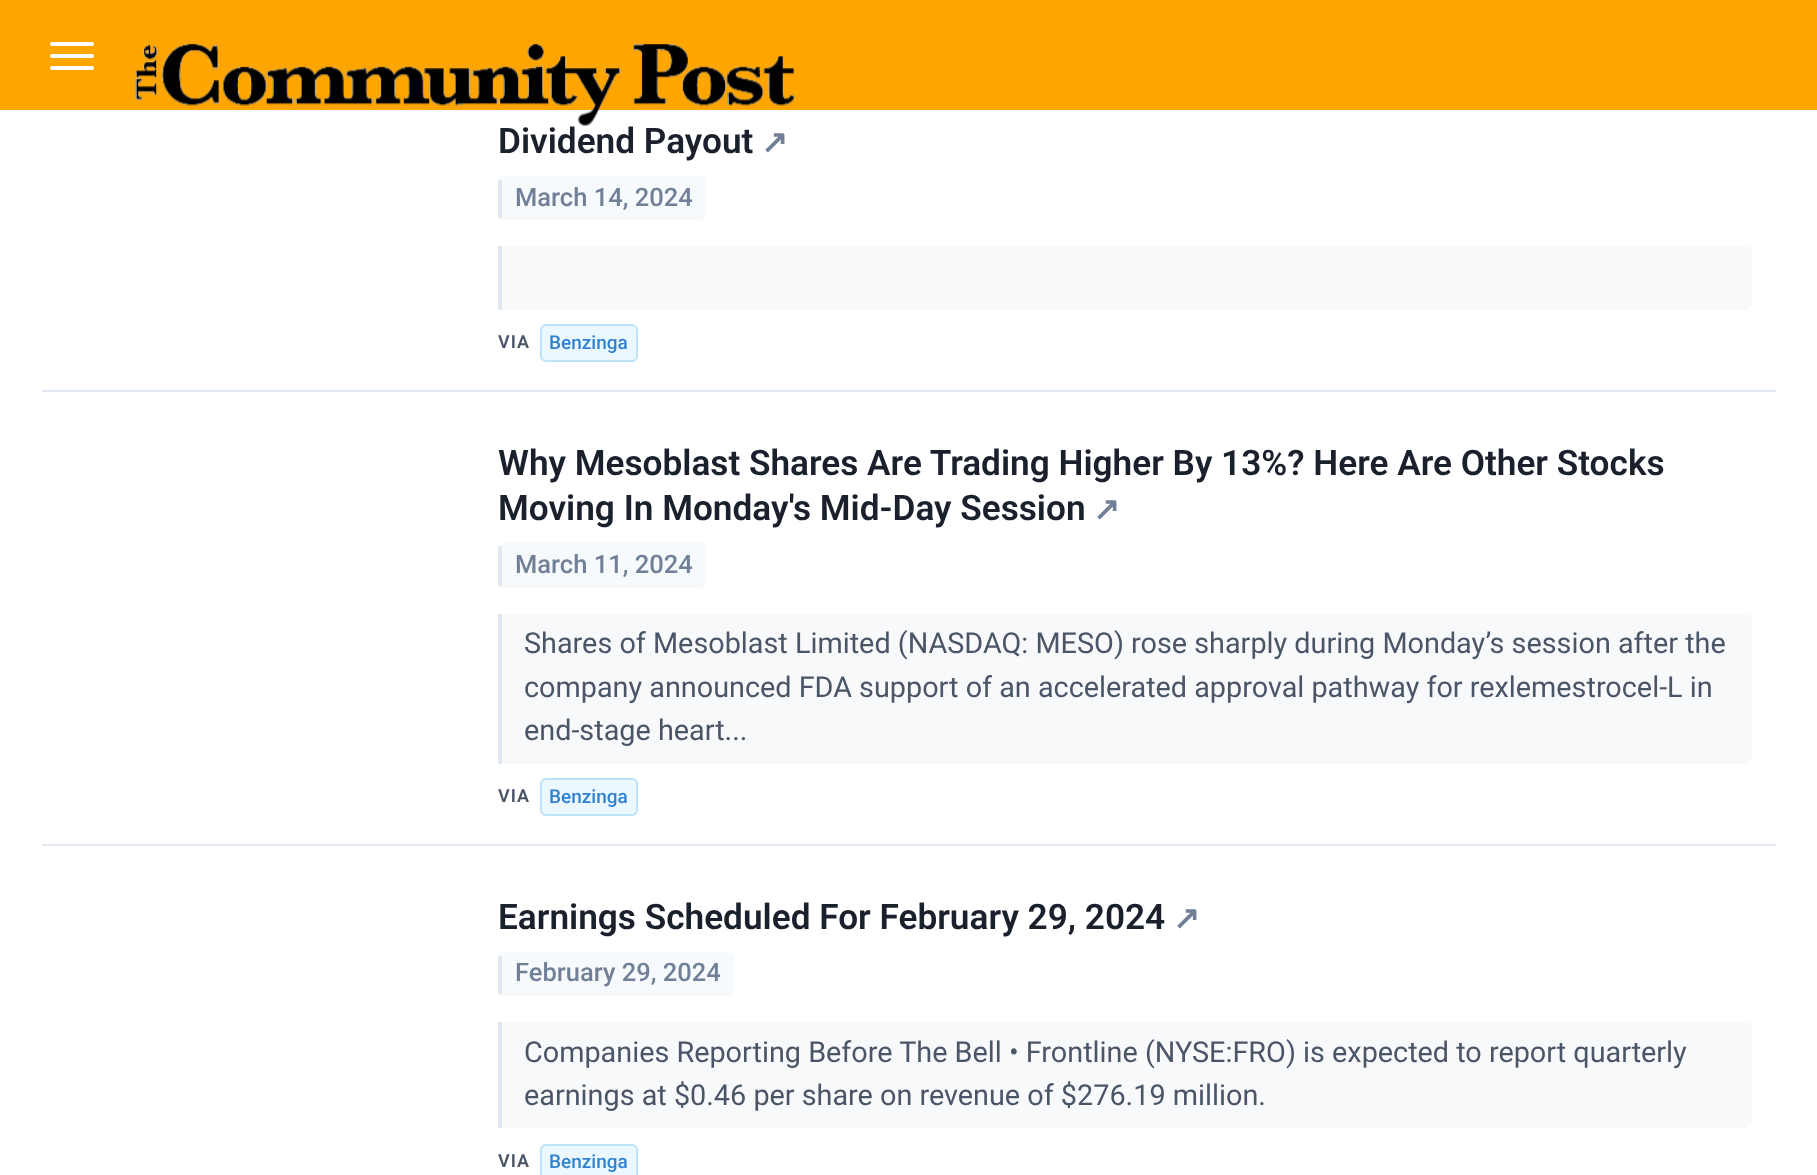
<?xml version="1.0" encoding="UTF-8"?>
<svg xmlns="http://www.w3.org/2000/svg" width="1817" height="1175">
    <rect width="100%" height="100%" fill="#FFFFFF"/>
    <rect x="0" y="0" width="1817" height="110" fill="#FFA500"/>
    <rect x="50" y="42" width="44" height="4" rx="2" fill="#FFFFFF"/>
    <rect x="50" y="54" width="44" height="4" rx="2" fill="#FFFFFF"/>
    <rect x="50" y="66" width="44" height="4" rx="2" fill="#FFFFFF"/>
    <image x="135" y="44" width="661" height="82" href="img_01.png"/>
    <rect x="42" y="390" width="1734" height="2" fill="#E2E8F0"/>
    <text x="498" y="153" font-family="Roboto" font-size="35.2" font-weight="600" fill="#1A202C">Dividend Payout</text>
    <text x="761" y="153" font-family="DejaVu Sans" font-size="32" font-weight="700" fill="#718096">↗</text>
    <rect x="498" y="176" width="208" height="44" rx="6" fill="#F7FAFC"/>
    <rect x="498" y="180" width="4" height="38" fill="#E2E8F0"/>
    <text x="515" y="206" font-family="Roboto" font-size="25.5" font-weight="500" fill="#718096">March 14, 2024</text>
    <path d="M 498 246 H 1744 C 1748.5 246 1752 249.5 1752 254 V 302 C 1752 306.5 1748.5 310 1744 310 H 498 Z" fill="#F8F9FA"/>
    <rect x="498" y="246" width="4" height="64" fill="#E2E8F0"/>
    <text x="498" y="348" font-family="Roboto" font-size="18" font-weight="600" letter-spacing="1" fill="#4A5568">VIA</text>
    <rect x="541" y="325" width="96" height="36" rx="5" fill="#EBF8FF" stroke="#BEE3F8" stroke-width="2"/>
    <text x="549" y="349" font-family="Roboto" font-size="19" font-weight="500" fill="#3182CE">Benzinga</text>
    <rect x="42" y="844" width="1734" height="2" fill="#E2E8F0"/>
    <text font-family="Roboto" font-size="35.2" font-weight="600" fill="#1A202C">
        <tspan x="498" y="475">Why Mesoblast Shares Are Trading Higher By 13%? Here Are Other Stocks</tspan>
        <tspan x="498" y="520">Moving In Monday's Mid-Day Session</tspan>
    </text>
    <text x="1093" y="520" font-family="DejaVu Sans" font-size="32" font-weight="700" fill="#718096">↗</text>
    <rect x="498" y="542" width="208" height="46" rx="6" fill="#F7FAFC"/>
    <rect x="498" y="546" width="4" height="40" fill="#E2E8F0"/>
    <text x="515" y="573" font-family="Roboto" font-size="25.5" font-weight="500" fill="#718096">March 11, 2024</text>
    <path d="M 498 614 H 1744 C 1748.5 614 1752 617.5 1752 622 V 756 C 1752 760.5 1748.5 764 1744 764 H 498 Z" fill="#F8F9FA"/>
    <rect x="498" y="614" width="4" height="150" fill="#E2E8F0"/>
    <text font-family="Roboto" font-size="28.8" fill="#4A5568">
        <tspan x="524" y="653">Shares of Mesoblast Limited (NASDAQ: MESO) rose sharply during Monday’s session after the</tspan>
        <tspan x="524" y="697">company announced FDA support of an accelerated approval pathway for rexlemestrocel-L in</tspan>
        <tspan x="524" y="740">end-stage heart...</tspan>
    </text>
    <text x="498" y="802" font-family="Roboto" font-size="18" font-weight="600" letter-spacing="1" fill="#4A5568">VIA</text>
    <rect x="541" y="779" width="96" height="36" rx="5" fill="#EBF8FF" stroke="#BEE3F8" stroke-width="2"/>
    <text x="549" y="803" font-family="Roboto" font-size="19" font-weight="500" fill="#3182CE">Benzinga</text>
    <text x="498" y="929" font-family="Roboto" font-size="35.2" font-weight="600" fill="#1A202C">Earnings Scheduled For February 29, 2024</text>
    <text x="1173" y="929" font-family="DejaVu Sans" font-size="32" font-weight="700" fill="#718096">↗</text>
    <rect x="498" y="952" width="236" height="44" rx="6" fill="#F7FAFC"/>
    <rect x="498" y="956" width="4" height="38" fill="#E2E8F0"/>
    <text x="515" y="981" font-family="Roboto" font-size="25.5" font-weight="500" fill="#718096">February 29, 2024</text>
    <path d="M 498 1022 H 1744 C 1748.5 1022 1752 1025.5 1752 1030 V 1120 C 1752 1124.5 1748.5 1128 1744 1128 H 498 Z" fill="#F8F9FA"/>
    <rect x="498" y="1022" width="4" height="106" fill="#E2E8F0"/>
    <text font-family="Roboto" font-size="28.8" fill="#4A5568">
        <tspan x="524" y="1062">Companies Reporting Before The Bell • Frontline (NYSE:FRO) is expected to report quarterly</tspan>
        <tspan x="524" y="1105">earnings at $0.46 per share on revenue of $276.19 million.</tspan>
    </text>
    <text x="498" y="1167" font-family="Roboto" font-size="18" font-weight="600" letter-spacing="1" fill="#4A5568">VIA</text>
    <rect x="541" y="1145" width="96" height="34" rx="5" fill="#EBF8FF" stroke="#BEE3F8" stroke-width="2"/>
    <text x="549" y="1168" font-family="Roboto" font-size="19" font-weight="500" fill="#3182CE">Benzinga</text>
</svg>
